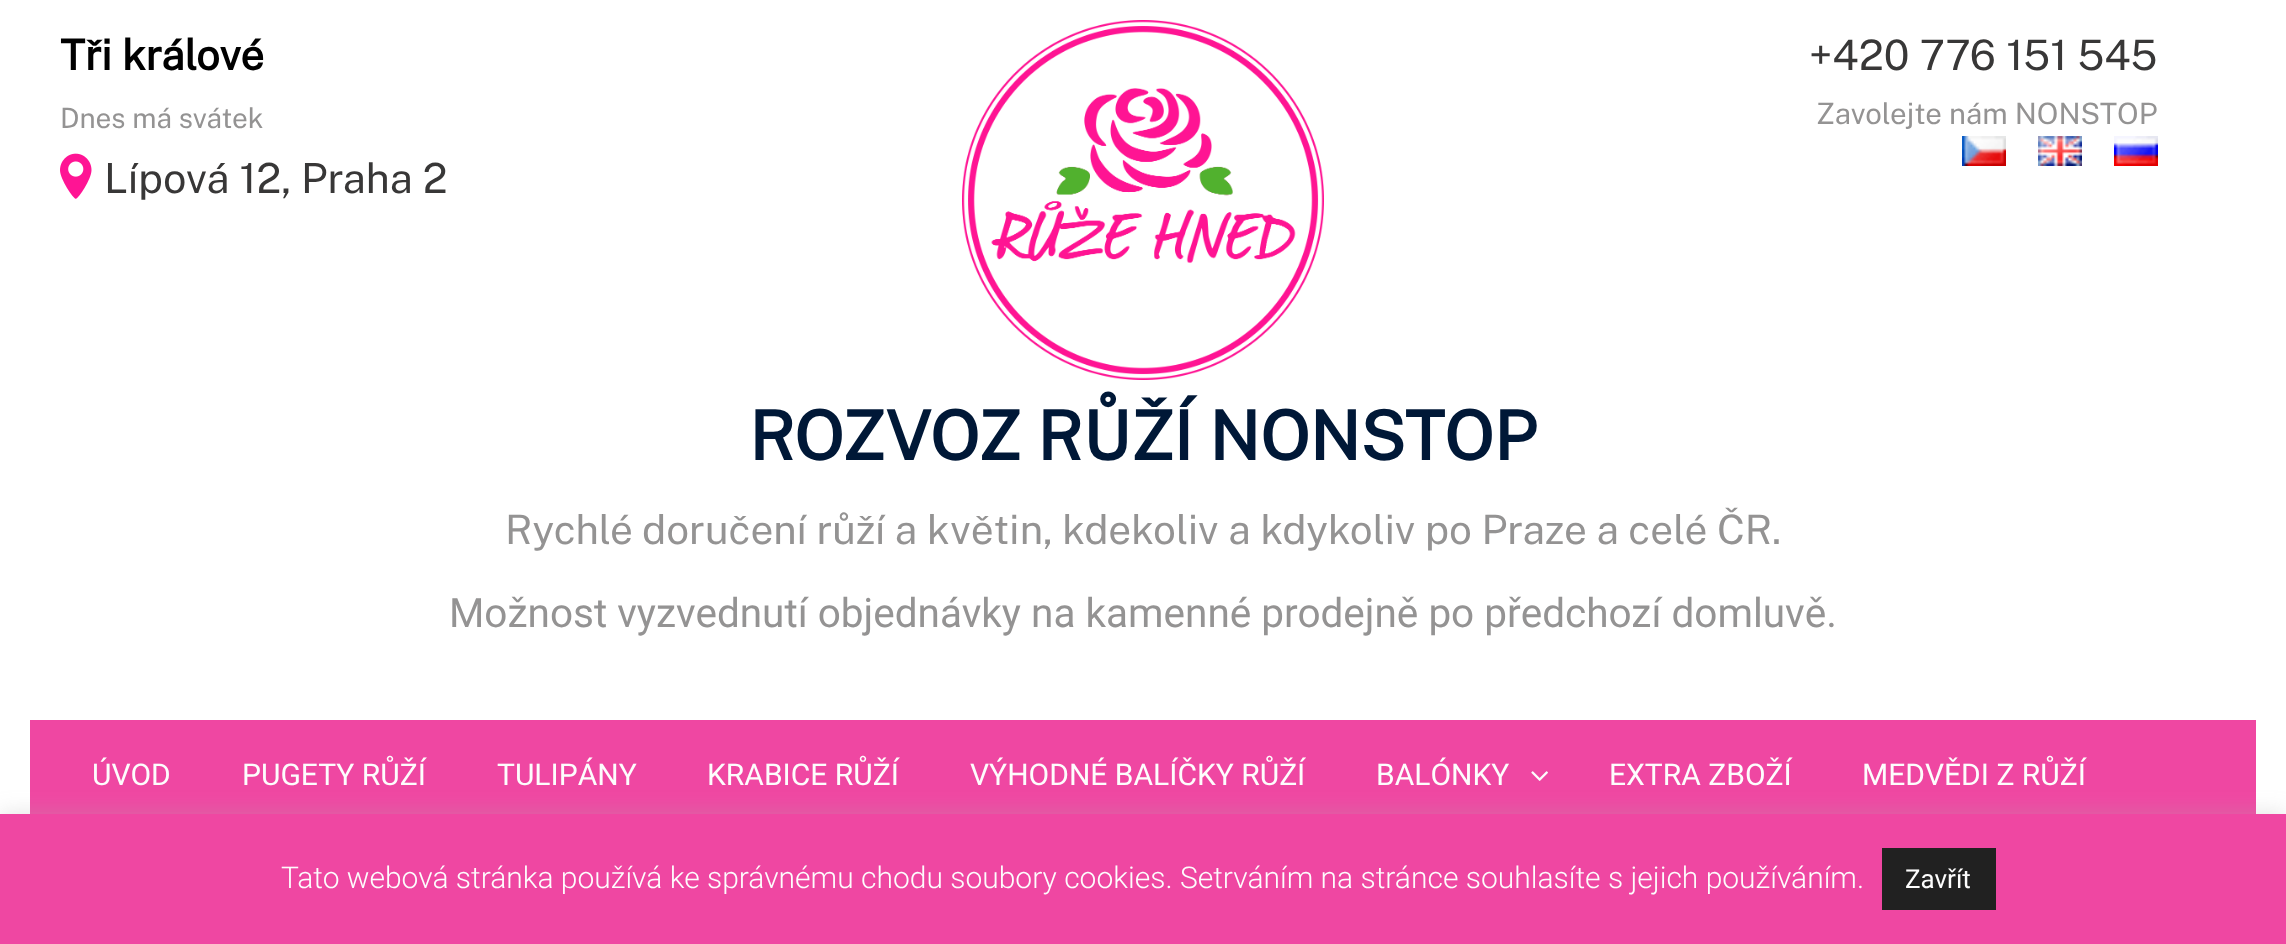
<?xml version="1.0" encoding="UTF-8"?>
<svg xmlns="http://www.w3.org/2000/svg" width="2286" height="944">
    <defs>
        <filter id="blur1" x="-50%" y="-200%" width="200%" height="500%"><feGaussianBlur stdDeviation="10"/></filter>
    </defs>
    <rect width="100%" height="100%" fill="#FFFFFF"/>
    <text x="60" y="70" font-family="Public Sans" font-size="42" font-weight="700" fill="#000000">Tři králové</text>
    <text x="60" y="128" font-family="Public Sans" font-size="28" font-weight="100" fill="#949393">Dnes má svátek</text>
    <image x="60" y="153" width="32" height="46" href="img_01.png"/>
    <text x="104" y="193" font-family="Public Sans" font-size="41.5" font-weight="100" fill="#383737">Lípová 12, Praha 2</text>
    <text x="1809" y="70" font-family="Public Sans" font-size="42" font-weight="100" fill="#383737">+420 776 151 545</text>
    <text x="1816" y="124" font-family="Public Sans" font-size="29.4" font-weight="100" fill="#949393">Zavolejte nám NONSTOP</text>
    <image x="1962" y="136" width="44" height="30" href="img_02.png"/>
    <image x="2038" y="136" width="44" height="30" href="img_03.png"/>
    <image x="2114" y="136" width="44" height="30" href="img_04.png"/>
    <image x="962" y="20" width="362" height="360" href="img_05.png"/>
    <text x="749" y="460" font-family="Public Sans" font-size="67.5" font-weight="700" fill="#001837">ROZVOZ RŮŽÍ NONSTOP</text>
    <text x="505" y="544" font-family="Public Sans" font-size="40.5" font-weight="100" fill="#949393">Rychlé doručení růží a květin, kdekoliv a kdykoliv po Praze a celé ČR.</text>
    <text x="449" y="627" font-family="Roboto" font-size="40.5" fill="#949393">Možnost vyzvednutí objednávky na kamenné prodejně po předchozí domluvě.</text>
    <rect x="30" y="720" width="2226" height="94" fill="#EF47A2"/>
    <text x="92" y="785" font-family="Heebo" font-size="30" fill="#FDFDFD">ÚVOD</text>
    <text x="242" y="785" font-family="Heebo" font-size="30" fill="#FDFDFD">PUGETY RŮŽÍ</text>
    <text x="497" y="785" font-family="Heebo" font-size="30" fill="#FDFDFD">TULIPÁNY</text>
    <text x="707" y="785" font-family="Heebo" font-size="30" fill="#FDFDFD">KRABICE RŮŽÍ</text>
    <text x="970" y="785" font-family="Heebo" font-size="30" fill="#FDFDFD">VÝHODNÉ BALÍČKY RŮŽÍ</text>
    <text x="1376" y="785" font-family="Heebo" font-size="30" fill="#FDFDFD">BALÓNKY</text>
    <image x="1531" y="771" width="17" height="10" href="img_06.png"/>
    <text x="1609" y="785" font-family="Heebo" font-size="30" fill="#FDFDFD">EXTRA ZBOŽÍ</text>
    <text x="1862" y="785" font-family="Heebo" font-size="30" fill="#FDFDFD">MEDVĚDI Z RŮŽÍ</text>
    <rect x="0" y="812" width="2286" height="130" fill="#ACABAB" fill-opacity="0.3" filter="url(#blur1)"/>
    <rect x="0" y="814" width="2286" height="130" fill="#EF47A2"/>
    <text x="281" y="888" font-family="Roboto" font-size="30" font-weight="300" fill="#FDFDFD">Tato webová stránka používá ke správnému chodu soubory cookies. Setrváním na stránce souhlasíte s jejich používáním.</text>
    <rect x="1882" y="848" width="114" height="62" fill="#212121"/>
    <text x="1905" y="888" font-family="Roboto" font-size="26" fill="#FDFDFD">Zavřít</text>
</svg>
